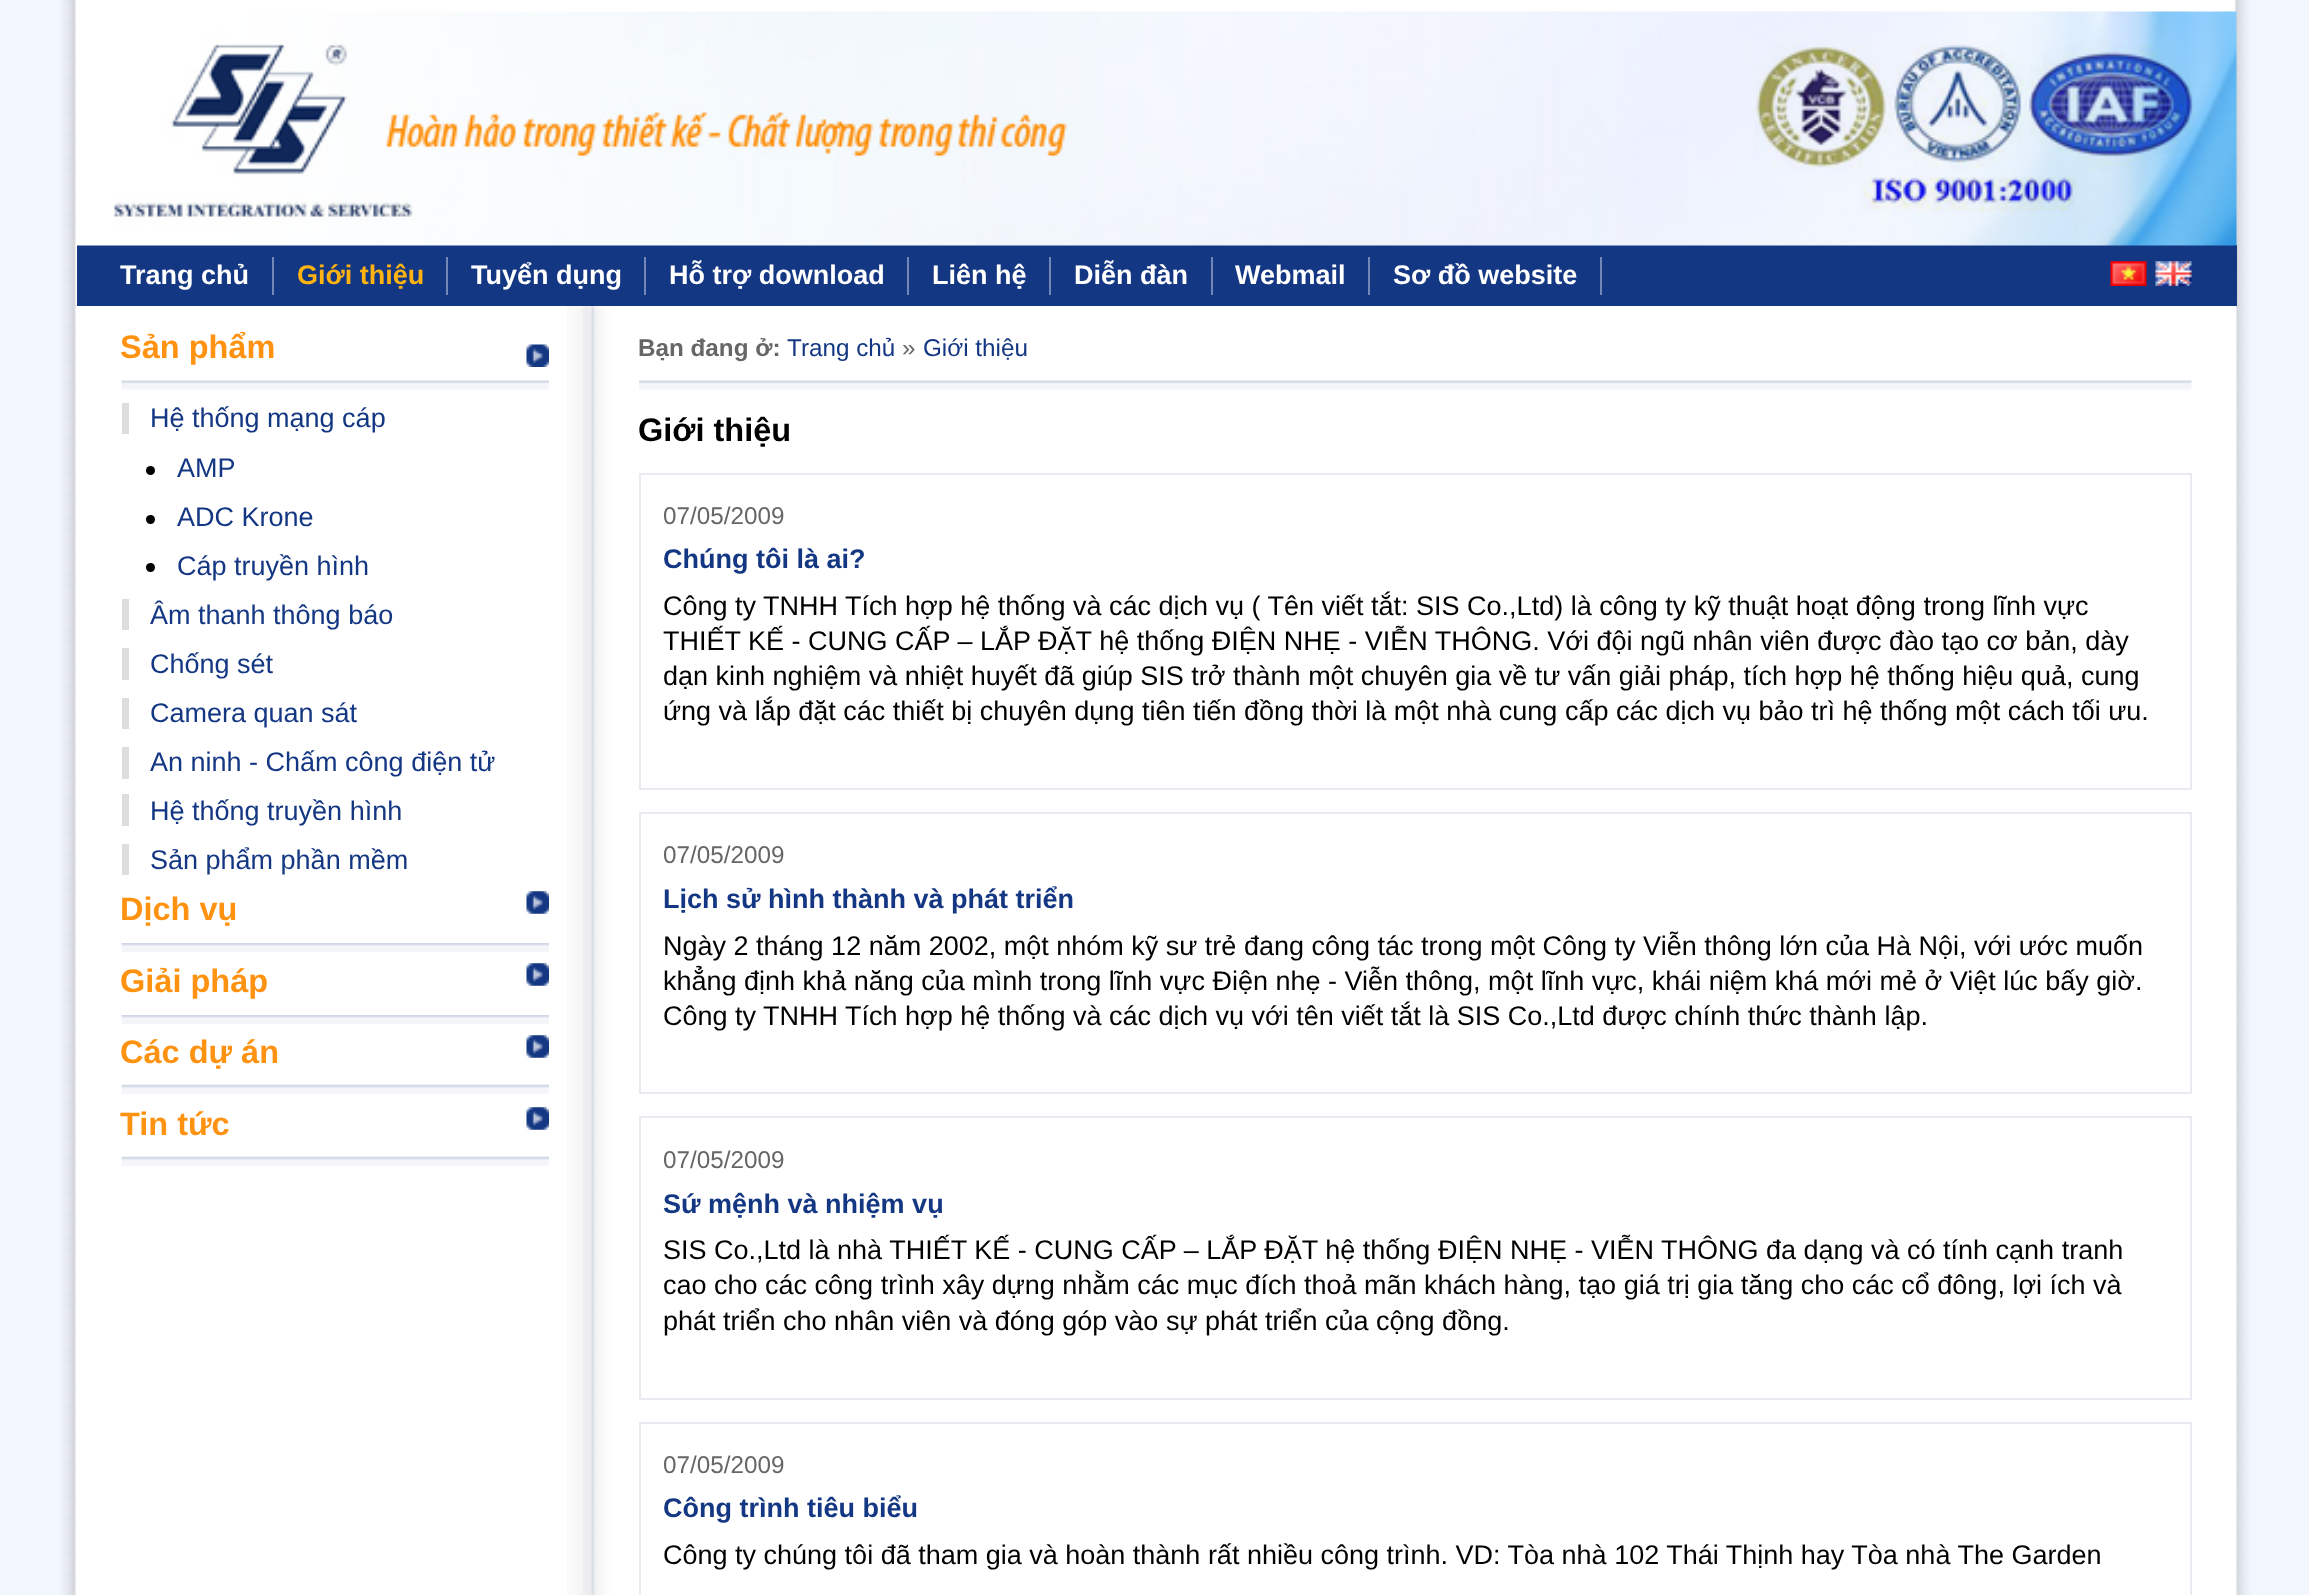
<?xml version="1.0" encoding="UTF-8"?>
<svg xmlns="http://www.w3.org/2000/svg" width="2309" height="1595">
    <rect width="100%" height="100%" fill="#F2F6FF"/>
    <image x="60" y="0" width="2190" height="1595" href="img_01.png"/>
    <rect x="77" y="245" width="2160" height="61" fill="#143783"/>
    <image x="77" y="11" width="2160" height="235" href="img_02.png"/>
    <rect x="272" y="257" width="2" height="38" fill="#7287B5"/>
    <text x="120" y="284" font-family="Liberation Sans" font-size="27" font-weight="700" fill="#FFFFFF">Trang chủ</text>
    <rect x="446" y="257" width="2" height="38" fill="#7287B5"/>
    <text x="297" y="284" font-family="Liberation Sans" font-size="27" font-weight="700" fill="#FFB311">Giới thiệu</text>
    <rect x="644" y="257" width="2" height="38" fill="#7287B5"/>
    <text x="471" y="284" font-family="Liberation Sans" font-size="27" font-weight="700" fill="#FFFFFF">Tuyển dụng</text>
    <rect x="907" y="257" width="2" height="38" fill="#7287B5"/>
    <text x="669" y="284" font-family="Liberation Sans" font-size="27" font-weight="700" fill="#FFFFFF">Hỗ trợ download</text>
    <rect x="1049" y="257" width="2" height="38" fill="#7287B5"/>
    <text x="932" y="284" font-family="Liberation Sans" font-size="27" font-weight="700" fill="#FFFFFF">Liên hệ</text>
    <rect x="1211" y="257" width="2" height="38" fill="#7287B5"/>
    <text x="1074" y="284" font-family="Liberation Sans" font-size="27" font-weight="700" fill="#FFFFFF">Diễn đàn</text>
    <rect x="1368" y="257" width="2" height="38" fill="#7287B5"/>
    <text x="1235" y="284" font-family="Liberation Sans" font-size="27" font-weight="700" fill="#FFFFFF">Webmail</text>
    <rect x="1600" y="257" width="2" height="38" fill="#7287B5"/>
    <text x="1393" y="284" font-family="Liberation Sans" font-size="27" font-weight="700" fill="#FFFFFF">Sơ đồ website</text>
    <image x="2110" y="261" width="37" height="25" href="img_03.png"/>
    <image x="2155" y="261" width="37" height="25" href="img_04.png"/>
    <image x="567" y="306" width="1670" height="1289" href="img_05.png"/>
    <image x="526" y="344" width="23" height="23" href="img_06.png"/>
    <image x="121" y="380" width="428" height="10" href="img_07.png"/>
    <text x="120" y="358" font-family="Liberation Sans" font-size="32.5" font-weight="700" fill="#FF9211">Sản phẩm</text>
    <text x="150" y="427" font-family="Liberation Sans" font-size="27" fill="#143783">Hệ thống mạng cáp</text>
    <rect x="122" y="403" width="7" height="31" fill="#DDDDDD"/>
    <circle cx="150.5" cy="470.5" r="4.5" fill="#000000"/>
    <text x="177" y="477" font-family="Liberation Sans" font-size="27" fill="#143783">AMP</text>
    <circle cx="150.5" cy="519.5" r="4.5" fill="#000000"/>
    <text x="177" y="526" font-family="Liberation Sans" font-size="27" fill="#143783">ADC Krone</text>
    <circle cx="150.5" cy="567.5" r="4.5" fill="#000000"/>
    <text x="177" y="575" font-family="Liberation Sans" font-size="27" fill="#143783">Cáp truyền hình</text>
    <text x="150" y="624" font-family="Liberation Sans" font-size="27" fill="#143783">Âm thanh thông báo</text>
    <rect x="122" y="599" width="7" height="31" fill="#DDDDDD"/>
    <text x="150" y="673" font-family="Liberation Sans" font-size="27" fill="#143783">Chống sét</text>
    <rect x="122" y="648" width="7" height="32" fill="#DDDDDD"/>
    <text x="150" y="722" font-family="Liberation Sans" font-size="27" fill="#143783">Camera quan sát</text>
    <rect x="122" y="698" width="7" height="31" fill="#DDDDDD"/>
    <text x="150" y="771" font-family="Liberation Sans" font-size="27" fill="#143783">An ninh - Chấm công điện tử</text>
    <rect x="122" y="747" width="7" height="32" fill="#DDDDDD"/>
    <text x="150" y="820" font-family="Liberation Sans" font-size="27" fill="#143783">Hệ thống truyền hình</text>
    <rect x="122" y="794" width="7" height="32" fill="#DDDDDD"/>
    <text x="150" y="869" font-family="Liberation Sans" font-size="27" fill="#143783">Sản phẩm phần mềm</text>
    <rect x="122" y="844" width="7" height="31" fill="#DDDDDD"/>
    <image x="526" y="891" width="23" height="23" href="img_08.png"/>
    <image x="121" y="943" width="428" height="9" href="img_09.png"/>
    <text x="120" y="920" font-family="Liberation Sans" font-size="32.5" font-weight="700" fill="#FF9211">Dịch vụ</text>
    <image x="526" y="963" width="23" height="23" href="img_08.png"/>
    <image x="121" y="1015" width="428" height="9" href="img_09.png"/>
    <text x="120" y="992" font-family="Liberation Sans" font-size="32.5" font-weight="700" fill="#FF9211">Giải pháp</text>
    <image x="526" y="1035" width="23" height="23" href="img_08.png"/>
    <image x="121" y="1084" width="428" height="10" href="img_10.png"/>
    <text x="120" y="1063" font-family="Liberation Sans" font-size="32.5" font-weight="700" fill="#FF9211">Các dự án</text>
    <image x="526" y="1107" width="23" height="23" href="img_08.png"/>
    <image x="121" y="1156" width="428" height="10" href="img_10.png"/>
    <text x="120" y="1135" font-family="Liberation Sans" font-size="32.5" font-weight="700" fill="#FF9211">Tin tức</text>
    <image x="639" y="380" width="1553" height="10" href="img_11.png"/>
    <text x="638" y="356" font-family="Liberation Sans" font-size="24.25" font-weight="700" fill="#666666">Bạn đang ở:</text>
    <text x="787" y="356" font-family="Liberation Sans" font-size="24.25" fill="#143783">Trang chủ</text>
    <text x="902" y="356" font-family="Liberation Sans" font-size="24.25" fill="#666666">»</text>
    <text x="923" y="356" font-family="Liberation Sans" font-size="24.25" fill="#143783">Giới thiệu</text>
    <text x="638" y="441" font-family="Liberation Sans" font-size="32.5" font-weight="700" fill="#000000">Giới thiệu</text>
    <rect x="640" y="474" width="1551" height="315" fill="none" stroke="#EAEBF2" stroke-width="2"/>
    <text x="663" y="524" font-family="Liberation Sans" font-size="24.25" fill="#666666">07/05/2009</text>
    <text x="663" y="568" font-family="Liberation Sans" font-size="27" font-weight="700" fill="#143783">Chúng tôi là ai?</text>
    <text font-family="Liberation Sans" font-size="27" fill="#000000">
        <tspan x="663" y="615">Công ty TNHH Tích hợp hệ thống và các dịch vụ ( Tên viết tắt: SIS Co.,Ltd) là công ty kỹ thuật hoạt động trong lĩnh vực</tspan>
        <tspan x="663" y="650">THIẾT KẾ - CUNG CẤP – LẮP ĐẶT hệ thống ĐIỆN NHẸ - VIỄN THÔNG. Với đội ngũ nhân viên được đào tạo cơ bản, dày</tspan>
        <tspan x="663" y="685">dạn kinh nghiệm và nhiệt huyết đã giúp SIS trở thành một chuyên gia về tư vấn giải pháp, tích hợp hệ thống hiệu quả, cung</tspan>
        <tspan x="663" y="720">ứng và lắp đặt các thiết bị chuyên dụng tiên tiến đồng thời là một nhà cung cấp các dịch vụ bảo trì hệ thống một cách tối ưu.</tspan>
    </text>
    <rect x="640" y="813" width="1551" height="280" fill="none" stroke="#EAEBF2" stroke-width="2"/>
    <text x="663" y="863" font-family="Liberation Sans" font-size="24.25" fill="#666666">07/05/2009</text>
    <text x="663" y="908" font-family="Liberation Sans" font-size="27" font-weight="700" fill="#143783">Lịch sử hình thành và phát triển</text>
    <text font-family="Liberation Sans" font-size="27" fill="#000000">
        <tspan x="663" y="955">Ngày 2 tháng 12 năm 2002, một nhóm kỹ sư trẻ đang công tác trong một Công ty Viễn thông lớn của Hà Nội, với ước muốn</tspan>
        <tspan x="663" y="990">khẳng định khả năng của mình trong lĩnh vực Điện nhẹ - Viễn thông, một lĩnh vực, khái niệm khá mới mẻ ở Việt lúc bấy giờ.</tspan>
        <tspan x="663" y="1025">Công ty TNHH Tích hợp hệ thống và các dịch vụ với tên viết tắt là SIS Co.,Ltd được chính thức thành lập.</tspan>
    </text>
    <rect x="640" y="1117" width="1551" height="282" fill="none" stroke="#EAEBF2" stroke-width="2"/>
    <text x="663" y="1168" font-family="Liberation Sans" font-size="24.25" fill="#666666">07/05/2009</text>
    <text x="663" y="1213" font-family="Liberation Sans" font-size="27" font-weight="700" fill="#143783">Sứ mệnh và nhiệm vụ</text>
    <text font-family="Liberation Sans" font-size="27" fill="#000000">
        <tspan x="663" y="1259">SIS Co.,Ltd là nhà THIẾT KẾ - CUNG CẤP – LẮP ĐẶT hệ thống ĐIỆN NHẸ - VIỄN THÔNG đa dạng và có tính cạnh tranh</tspan>
        <tspan x="663" y="1294">cao cho các công trình xây dựng nhằm các mục đích thoả mãn khách hàng, tạo giá trị gia tăng cho các cổ đông, lợi ích và</tspan>
        <tspan x="663" y="1330">phát triển cho nhân viên và đóng góp vào sự phát triển của cộng đồng.</tspan>
    </text>
    <rect x="640" y="1423" width="1551" height="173" fill="none" stroke="#EAEBF2" stroke-width="2"/>
    <text x="663" y="1473" font-family="Liberation Sans" font-size="24.25" fill="#666666">07/05/2009</text>
    <text x="663" y="1517" font-family="Liberation Sans" font-size="27" font-weight="700" fill="#143783">Công trình tiêu biểu</text>
    <text x="663" y="1564" font-family="Liberation Sans" font-size="27" fill="#000000">Công ty chúng tôi đã tham gia và hoàn thành rất nhiều công trình. VD: Tòa nhà 102 Thái Thịnh hay Tòa nhà The Garden</text>
</svg>
